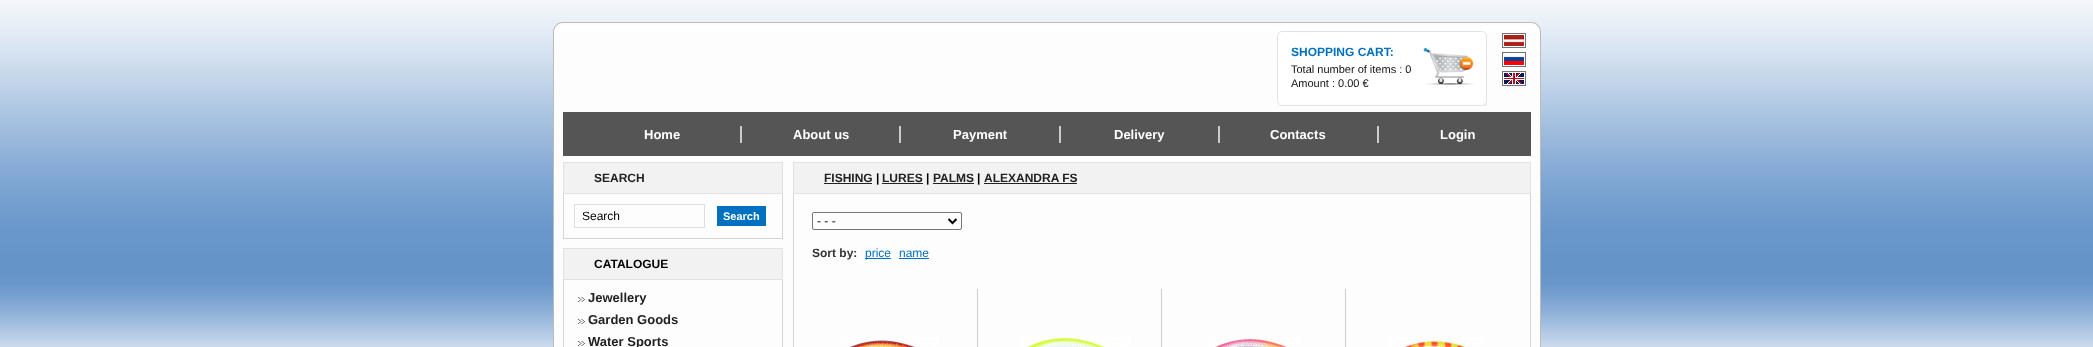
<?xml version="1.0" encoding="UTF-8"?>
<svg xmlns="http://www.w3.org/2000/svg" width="2093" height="347">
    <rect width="100%" height="100%" fill="#FFFFFF"/>
    <image x="0" y="0" width="2093" height="347" href="img_01.png"/>
    <rect x="554" y="32" width="986" height="315" fill="#FDFDFD"/>
    <rect x="1540" y="32" width="1" height="315" fill="#BBBBBB"/>
    <rect x="553" y="32" width="1" height="315" fill="#BBBBBB"/>
    <rect x="559" y="22" width="1" height="1" fill="#D8DDE2"/>
    <rect x="560" y="22" width="1" height="1" fill="#CACCCF"/>
    <rect x="561" y="22" width="1" height="1" fill="#C1C2C3"/>
    <rect x="562" y="22" width="1" height="1" fill="#BCBCBC"/>
    <rect x="557" y="23" width="1" height="1" fill="#D9DEE3"/>
    <rect x="558" y="23" width="1" height="1" fill="#BBBBBB"/>
    <rect x="559" y="23" width="1" height="1" fill="#CDCDCD"/>
    <rect x="560" y="23" width="1" height="1" fill="#E5E5E5"/>
    <rect x="561" y="23" width="1" height="1" fill="#F4F4F4"/>
    <rect x="562" y="23" width="1" height="1" fill="#FBFBFB"/>
    <rect x="555" y="25" width="1" height="1" fill="#CED1D5"/>
    <rect x="556" y="24" width="1" height="1" fill="#CED1D5"/>
    <rect x="557" y="24" width="1" height="1" fill="#C5C5C5"/>
    <rect x="558" y="24" width="1" height="1" fill="#EEEEEE"/>
    <rect x="559" y="24" width="4" height="8" fill="#FDFDFD"/>
    <rect x="554" y="26" width="1" height="1" fill="#D8DDE3"/>
    <rect x="555" y="26" width="1" height="1" fill="#C5C5C5"/>
    <rect x="556" y="25" width="1" height="1" fill="#CCCCCC"/>
    <rect x="557" y="25" width="1" height="1" fill="#FAFAFA"/>
    <rect x="558" y="25" width="1" height="7" fill="#FDFDFD"/>
    <rect x="556" y="26" width="1" height="1" fill="#FAFAFA"/>
    <rect x="553" y="28" width="1" height="1" fill="#D6DBE1"/>
    <rect x="554" y="27" width="1" height="1" fill="#BBBBBB"/>
    <rect x="555" y="27" width="1" height="1" fill="#EEEEEE"/>
    <rect x="556" y="27" width="1" height="5" fill="#FDFDFD"/>
    <rect x="553" y="29" width="1" height="1" fill="#C9CBCE"/>
    <rect x="554" y="28" width="1" height="1" fill="#CDCDCD"/>
    <rect x="555" y="28" width="1" height="4" fill="#FDFDFD"/>
    <rect x="554" y="29" width="1" height="1" fill="#E5E5E5"/>
    <rect x="553" y="30" width="1" height="1" fill="#C0C1C2"/>
    <rect x="554" y="30" width="1" height="1" fill="#F4F4F4"/>
    <rect x="553" y="31" width="1" height="1" fill="#BCBCBC"/>
    <rect x="554" y="31" width="1" height="1" fill="#FBFBFB"/>
    <rect x="563" y="23" width="968" height="3" fill="#FDFDFD"/>
    <rect x="563" y="22" width="968" height="1" fill="#BBBBBB"/>
    <rect x="1531" y="22" width="1" height="1" fill="#BCBCBC"/>
    <rect x="1532" y="22" width="1" height="1" fill="#C1C2C3"/>
    <rect x="1533" y="22" width="1" height="1" fill="#CACCCF"/>
    <rect x="1534" y="22" width="1" height="1" fill="#D8DDE2"/>
    <rect x="1531" y="23" width="1" height="1" fill="#FBFBFB"/>
    <rect x="1532" y="23" width="1" height="1" fill="#F4F4F4"/>
    <rect x="1533" y="23" width="1" height="1" fill="#E5E5E5"/>
    <rect x="1534" y="23" width="1" height="1" fill="#CDCDCD"/>
    <rect x="1535" y="23" width="1" height="1" fill="#BBBBBB"/>
    <rect x="1536" y="23" width="1" height="1" fill="#D9DEE3"/>
    <rect x="1531" y="24" width="4" height="8" fill="#FDFDFD"/>
    <rect x="1535" y="24" width="1" height="1" fill="#EEEEEE"/>
    <rect x="1536" y="24" width="1" height="1" fill="#C5C5C5"/>
    <rect x="1537" y="24" width="1" height="1" fill="#CED1D5"/>
    <rect x="1535" y="25" width="1" height="7" fill="#FDFDFD"/>
    <rect x="1536" y="25" width="1" height="1" fill="#FAFAFA"/>
    <rect x="1537" y="25" width="1" height="1" fill="#CCCCCC"/>
    <rect x="1538" y="25" width="1" height="1" fill="#CED1D5"/>
    <rect x="1537" y="26" width="1" height="1" fill="#FAFAFA"/>
    <rect x="1538" y="26" width="1" height="1" fill="#C5C5C5"/>
    <rect x="1539" y="26" width="1" height="1" fill="#D8DDE3"/>
    <rect x="1537" y="27" width="1" height="5" fill="#FDFDFD"/>
    <rect x="1538" y="27" width="1" height="1" fill="#EEEEEE"/>
    <rect x="1539" y="27" width="1" height="1" fill="#BBBBBB"/>
    <rect x="1538" y="28" width="1" height="4" fill="#FDFDFD"/>
    <rect x="1539" y="28" width="1" height="1" fill="#CDCDCD"/>
    <rect x="1540" y="28" width="1" height="1" fill="#D6DBE1"/>
    <rect x="1539" y="29" width="1" height="1" fill="#E5E5E5"/>
    <rect x="1540" y="29" width="1" height="1" fill="#C9CBCE"/>
    <rect x="1539" y="30" width="1" height="1" fill="#F4F4F4"/>
    <rect x="1540" y="30" width="1" height="1" fill="#C0C1C2"/>
    <rect x="1539" y="31" width="1" height="1" fill="#FBFBFB"/>
    <rect x="1540" y="31" width="1" height="1" fill="#BCBCBC"/>
    <rect x="557" y="26" width="980" height="6" fill="#FFFFFF"/>
    <image x="1277" y="31" width="210" height="75" href="img_02.png"/>
    <text x="1291" y="56" font-family="Liberation Sans" font-size="12" font-weight="700" fill="#0070C0">SHOPPING CART:</text>
    <text font-family="Liberation Sans" font-size="11" fill="#121212">
        <tspan x="1291" y="73">Total number of items : 0</tspan>
        <tspan x="1291" y="87">Amount : 0.00 €</tspan>
    </text>
    <image x="1423" y="48" width="51" height="37" href="img_03.png"/>
    <image x="1502" y="33" width="24" height="15" href="img_04.png"/>
    <image x="1502" y="52" width="24" height="15" href="img_05.png"/>
    <image x="1502" y="71" width="24" height="15" href="img_06.png"/>
    <rect x="563" y="112" width="968" height="44" fill="#555555"/>
    <text x="644" y="139" font-family="Liberation Sans" font-size="13" font-weight="700" fill="#FFFFFF">Home</text>
    <rect x="740" y="126" width="2" height="17" fill="#CCCCCC"/>
    <text x="793" y="139" font-family="Liberation Sans" font-size="13" font-weight="700" fill="#FFFFFF">About us</text>
    <rect x="899" y="126" width="2" height="17" fill="#CCCCCC"/>
    <text x="953" y="139" font-family="Liberation Sans" font-size="13" font-weight="700" fill="#FFFFFF">Payment</text>
    <rect x="1059" y="126" width="2" height="17" fill="#CCCCCC"/>
    <text x="1114" y="139" font-family="Liberation Sans" font-size="13" font-weight="700" fill="#FFFFFF">Delivery</text>
    <rect x="1218" y="126" width="2" height="17" fill="#CCCCCC"/>
    <text x="1270" y="139" font-family="Liberation Sans" font-size="13" font-weight="700" fill="#FFFFFF">Contacts</text>
    <rect x="1377" y="126" width="2" height="17" fill="#CCCCCC"/>
    <text x="1440" y="139" font-family="Liberation Sans" font-size="13" font-weight="700" fill="#FFFFFF">Login</text>
    <rect x="563.5" y="162.5" width="219" height="31" fill="#F2F2F2" stroke="#E2E2E2"/>
    <text x="594" y="182" font-family="Liberation Sans" font-size="12" font-weight="700" fill="#222222">SEARCH</text>
    <rect x="782" y="194" width="1" height="45" fill="#D6D6D6"/>
    <rect x="563" y="238" width="220" height="1" fill="#D6D6D6"/>
    <rect x="563" y="194" width="1" height="45" fill="#D6D6D6"/>
    <rect x="574.5" y="204.5" width="130" height="23" fill="none" stroke="#DEDEDE"/>
    <text x="582" y="220" font-family="Liberation Sans" font-size="12" fill="#000000">Search</text>
    <rect x="717" y="206" width="49" height="20" fill="#0070C0"/>
    <text x="723" y="220" font-family="Liberation Sans" font-size="11" font-weight="700" fill="#FFFFFF">Search</text>
    <rect x="563.5" y="248.5" width="219" height="31" fill="#F2F2F2" stroke="#E2E2E2"/>
    <text x="594" y="268" font-family="Liberation Sans" font-size="12" font-weight="700" fill="#000000">CATALOGUE</text>
    <rect x="782" y="280" width="1" height="67" fill="#D6D6D6"/>
    <rect x="563" y="280" width="1" height="67" fill="#D6D6D6"/>
    <image x="578" y="297" width="7" height="5" href="img_07.png"/>
    <text x="588" y="302" font-family="Liberation Sans" font-size="13" font-weight="700" fill="#222222">Jewellery</text>
    <image x="578" y="319" width="7" height="5" href="img_07.png"/>
    <text x="588" y="324" font-family="Liberation Sans" font-size="13" font-weight="700" fill="#222222">Garden Goods</text>
    <image x="578" y="341" width="7" height="5" href="img_07.png"/>
    <text x="588" y="346" font-family="Liberation Sans" font-size="13" font-weight="700" fill="#222222">Water Sports</text>
    <rect x="793.5" y="162.5" width="737" height="31" fill="#F2F2F2" stroke="#E2E2E2"/>
    <text x="824" y="182" font-family="Liberation Sans" font-size="12" font-weight="700" fill="#222222">FISHING</text>
    <rect x="824" y="183" width="48" height="1" fill="#222222"/>
    <text x="876" y="182" font-family="Liberation Sans" font-size="12" font-weight="700" fill="#000000">|</text>
    <text x="882" y="182" font-family="Liberation Sans" font-size="12" font-weight="700" fill="#222222">LURES</text>
    <rect x="882" y="183" width="41" height="1" fill="#222222"/>
    <text x="926" y="182" font-family="Liberation Sans" font-size="12" font-weight="700" fill="#000000">|</text>
    <text x="933" y="182" font-family="Liberation Sans" font-size="12" font-weight="700" fill="#222222">PALMS</text>
    <rect x="933" y="183" width="41" height="1" fill="#222222"/>
    <text x="977" y="182" font-family="Liberation Sans" font-size="12" font-weight="700" fill="#000000">|</text>
    <text x="984" y="182" font-family="Liberation Sans" font-size="12" font-weight="700" fill="#222222">ALEXANDRA FS</text>
    <rect x="984" y="183" width="93" height="1" fill="#222222"/>
    <rect x="1530" y="194" width="1" height="153" fill="#D6D6D6"/>
    <rect x="793" y="194" width="1" height="153" fill="#D6D6D6"/>
    <rect x="812.5" y="212.5" width="149" height="17" rx="1.5" fill="none" stroke="#767676"/>
    <path d="M 948.5 219 L 952.5 223 L 956.5 219" fill="none" stroke="#000000" stroke-width="2"/>
    <text x="817" y="225" font-family="Liberation Sans" font-size="12" fill="#000000">- - -</text>
    <text x="812" y="257" font-family="Liberation Sans" font-size="12" font-weight="700" fill="#353434">Sort by:</text>
    <rect x="865" y="258" width="26" height="1" fill="#0070C0"/>
    <text x="865" y="257" font-family="Liberation Sans" font-size="12" fill="#0070C0">price</text>
    <text x="899" y="257" font-family="Liberation Sans" font-size="12" fill="#0070C0">name</text>
    <rect x="899" y="258" width="30" height="1" fill="#0070C0"/>
    <image x="841" y="337" width="97" height="10" href="img_08.png"/>
    <rect x="977" y="289" width="1" height="58" fill="#CCCCCC"/>
    <image x="1021" y="337" width="109" height="10" href="img_09.png"/>
    <rect x="1161" y="289" width="1" height="58" fill="#CCCCCC"/>
    <image x="1208" y="337" width="94" height="10" href="img_10.png"/>
    <rect x="1345" y="289" width="1" height="58" fill="#CCCCCC"/>
    <image x="1387" y="337" width="96" height="10" href="img_11.png"/>
</svg>
